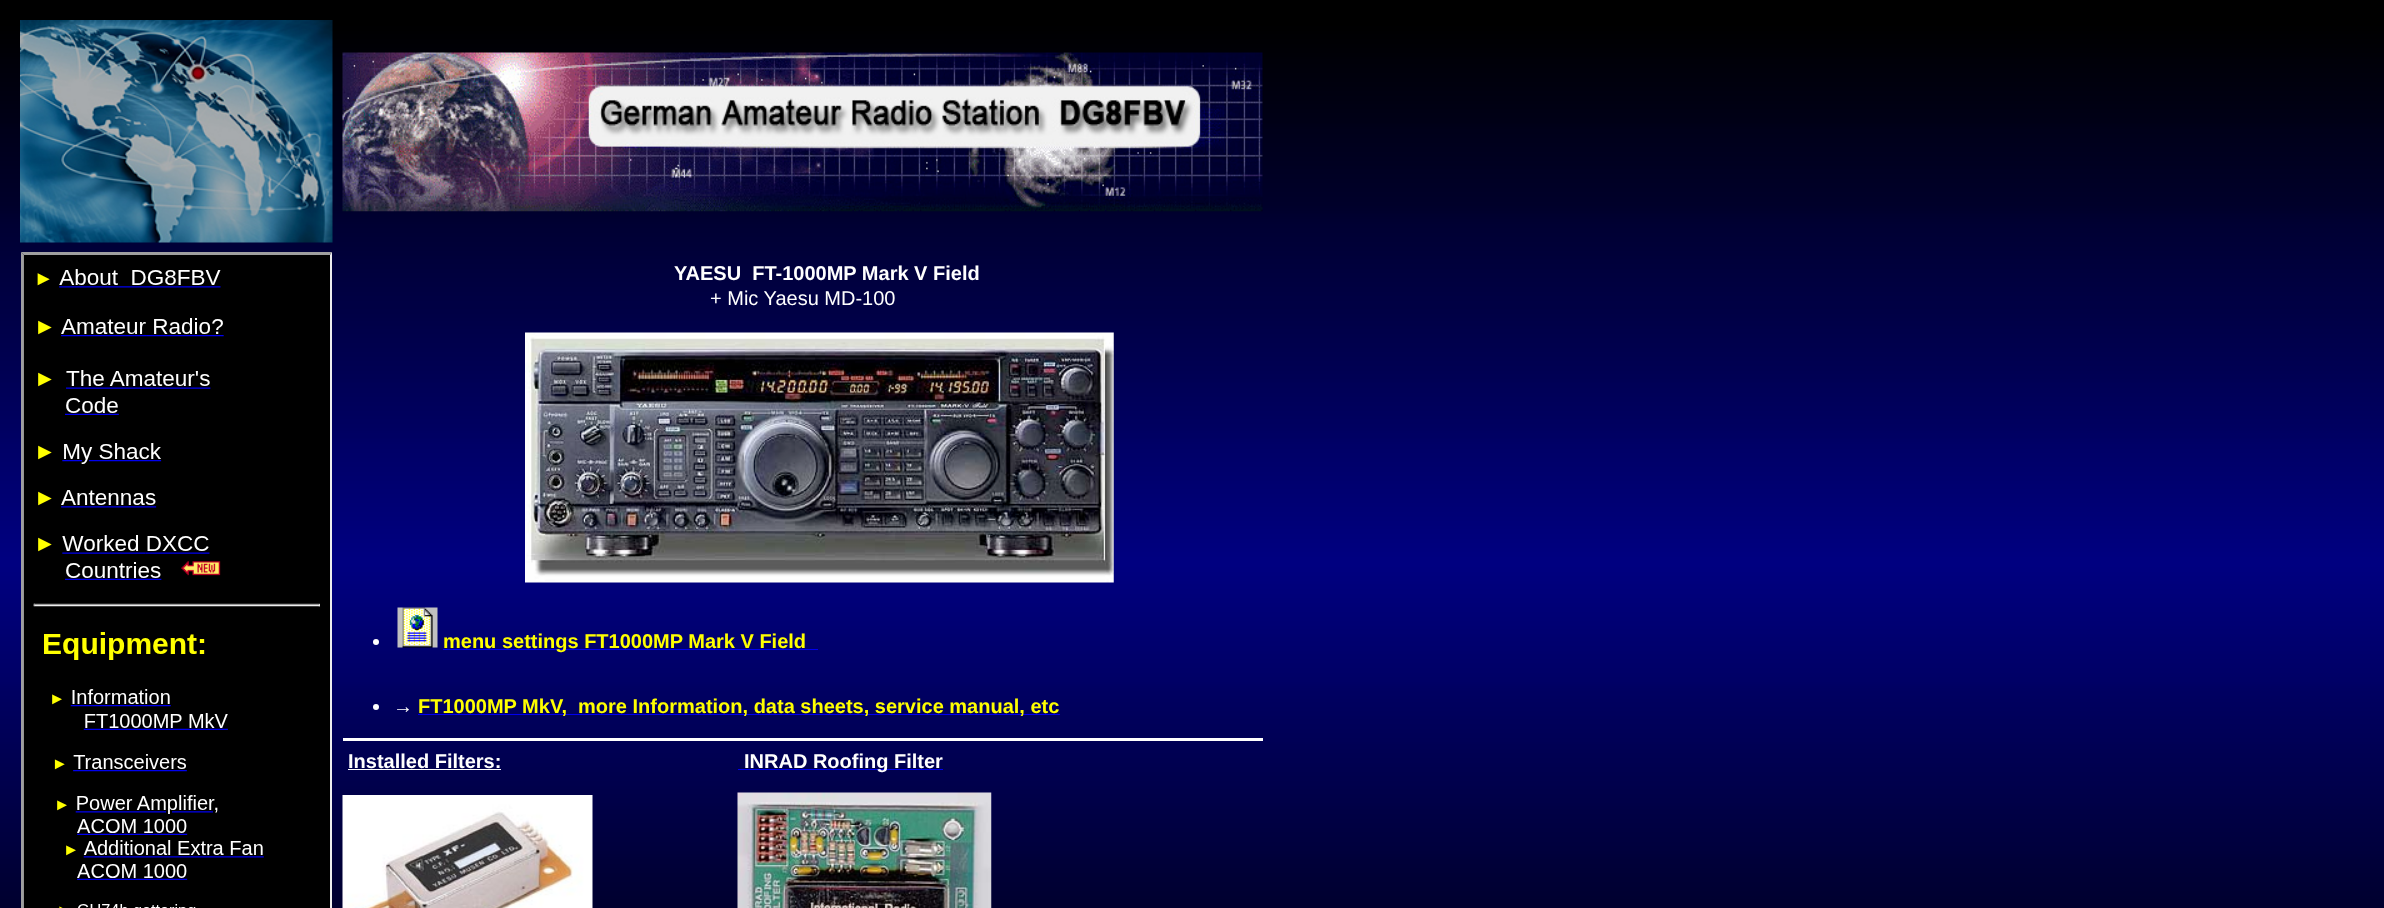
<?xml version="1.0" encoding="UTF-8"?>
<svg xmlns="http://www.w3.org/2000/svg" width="2384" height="908">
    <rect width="100%" height="100%" fill="#FFFFFF"/>
    <image x="0" y="0" width="2384" height="908" href="img_01.png"/>
    <image x="20" y="20" width="313" height="223" href="img_02.png"/>
    <image x="342" y="52" width="921" height="160" href="img_03.png"/>
    <path d="M 21 252 H 332 L 330 255 H 24 Z" fill="#9F9F9F"/>
    <path d="M 21 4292 V 252 L 24 255 V 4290 Z" fill="#9F9F9F"/>
    <image x="23" y="255" width="307" height="653" href="img_04.png"/>
    <path d="M 332 252 V 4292 L 330 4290 V 255 Z" fill="#EEEEEE"/>
    <text x="674" y="280" font-family="Liberation Sans" font-size="20" font-weight="700" fill="#FFFFFF" xml:space="preserve">YAESU  FT-1000MP Mark V Field</text>
    <text x="710" y="305" font-family="Liberation Sans" font-size="20" fill="#FFFFFF">+ Mic Yaesu MD-100</text>
    <image x="525" y="332" width="589" height="251" href="img_05.png"/>
    <circle cx="376" cy="642" r="3" fill="#FFFFFF"/>
    <image x="397" y="607" width="41" height="41" href="img_06.png"/>
    <rect x="443" y="649" width="375" height="1" fill="#0000EE"/>
    <text x="443" y="648" font-family="Liberation Sans" font-size="20" font-weight="700" fill="#FFFF00">menu settings FT1000MP Mark V Field</text>
    <circle cx="376" cy="707" r="3" fill="#FFFFFF"/>
    <text x="393" y="713" font-family="Liberation Sans" font-size="20" font-weight="700" fill="#FFFFFF">→</text>
    <rect x="418" y="714" width="642" height="1" fill="#0000EE"/>
    <text x="418" y="713" font-family="Liberation Sans" font-size="20" font-weight="700" fill="#FFFF00" xml:space="preserve">FT1000MP MkV,  more Information, data sheets, service manual, etc</text>
    <rect x="343" y="738" width="920" height="3" fill="#FFFFFF"/>
    <text x="348" y="768" font-family="Liberation Sans" font-size="20" font-weight="700" fill="#FFFFFF">Installed Filters:</text>
    <rect x="348" y="769" width="153" height="1" fill="#FFFFFF"/>
    <image x="342" y="795" width="251" height="113" href="img_07.png"/>
    <rect x="738" y="769" width="205" height="1" fill="#0000EE"/>
    <text x="744" y="768" font-family="Liberation Sans" font-size="20" font-weight="700" fill="#FFFFFF">INRAD Roofing Filter</text>
    <image x="737" y="792" width="255" height="116" href="img_08.png"/>
</svg>
